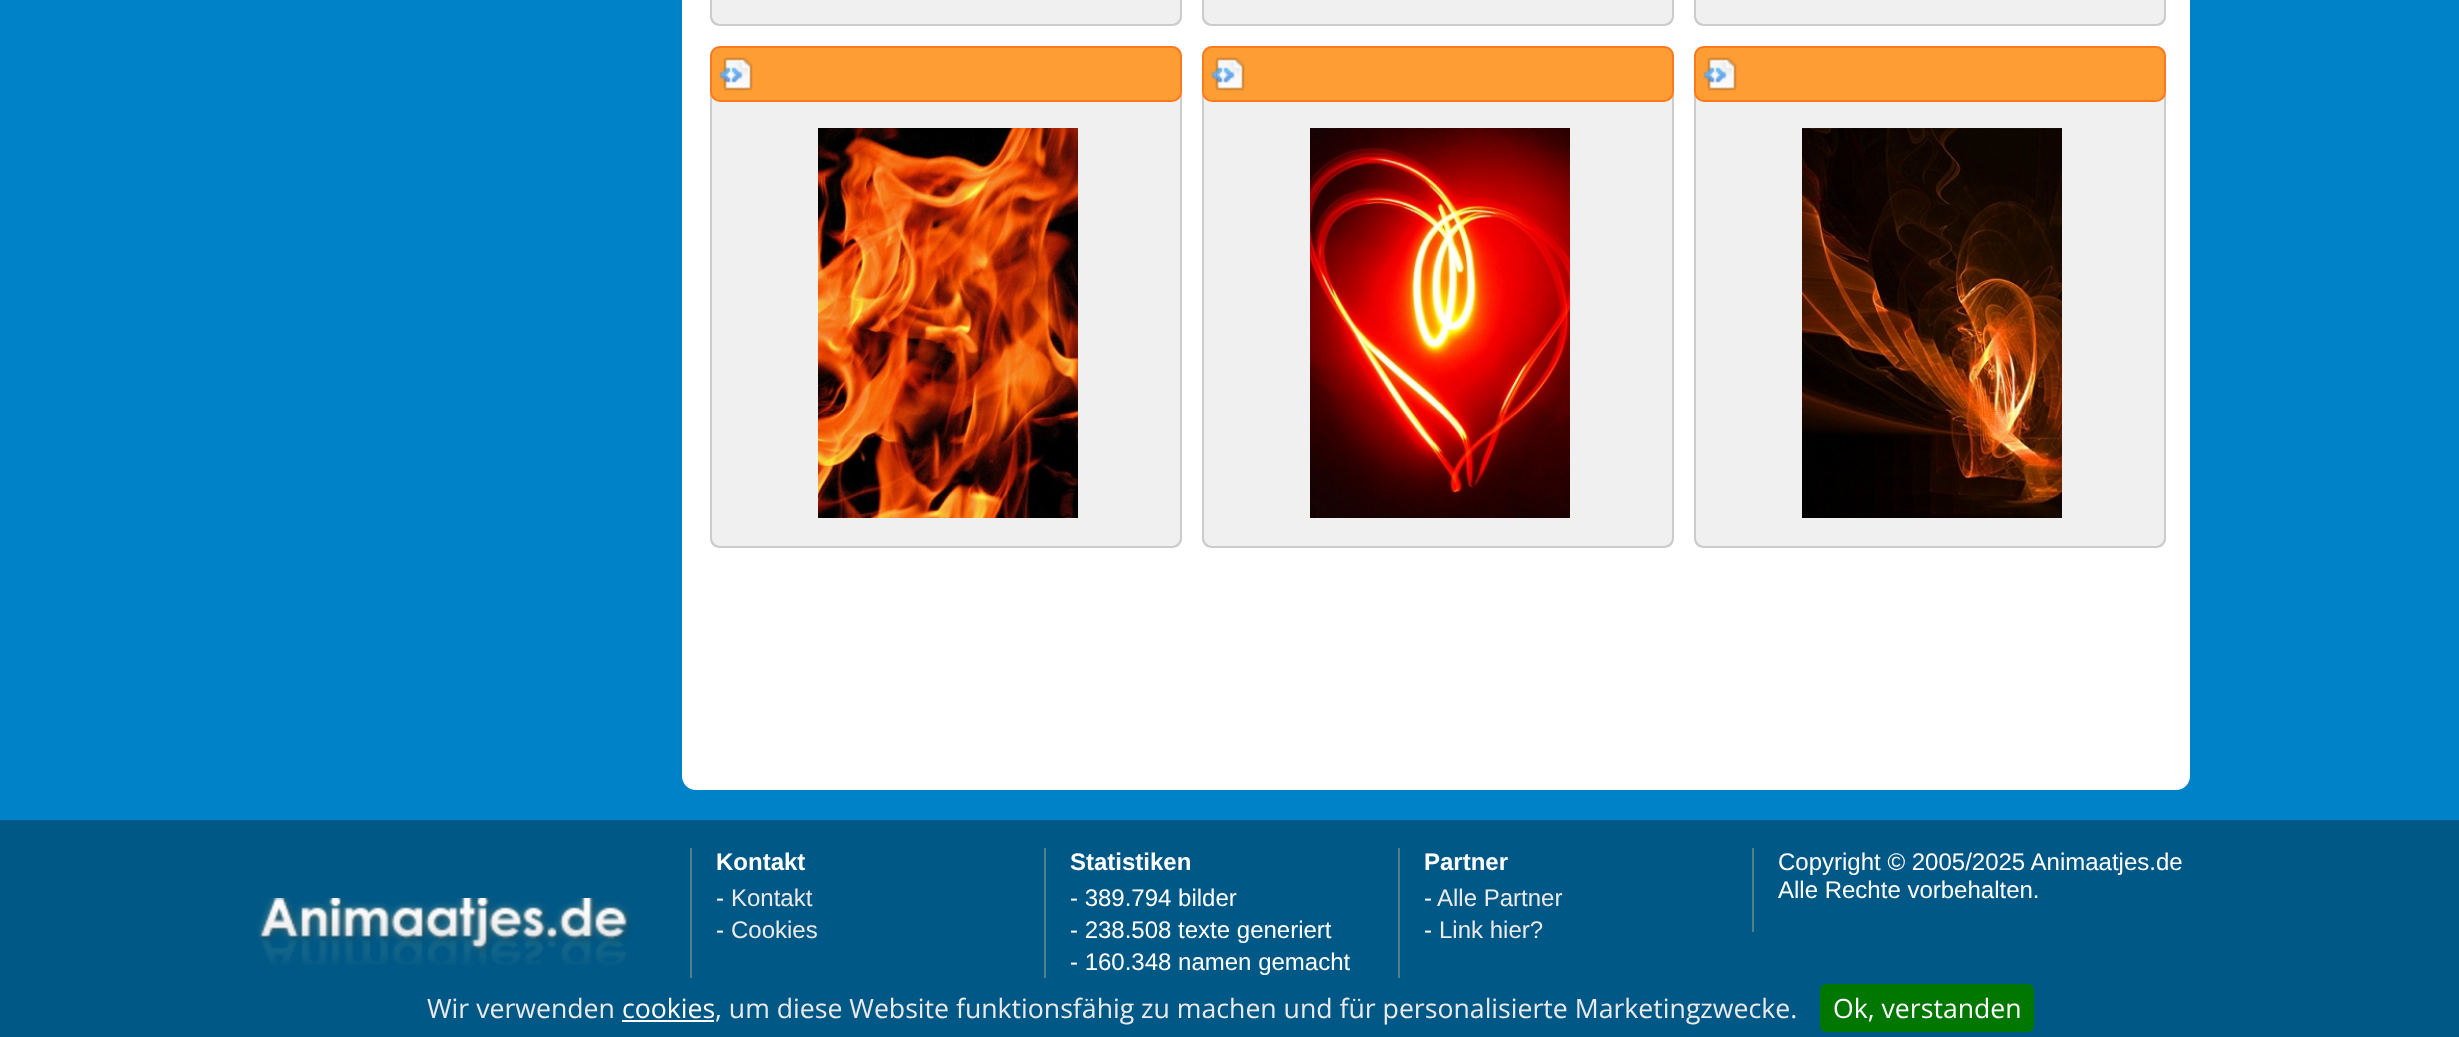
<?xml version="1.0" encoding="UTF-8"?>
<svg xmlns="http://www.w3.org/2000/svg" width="2459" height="1037">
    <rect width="100%" height="100%" fill="#0082C8"/>
    <rect x="682" y="-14" width="1508" height="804" rx="14" fill="#FFFFFF"/>
    <rect x="710" y="-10" width="472" height="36" rx="10" fill="#F0F0F0"/>
    <path d="M 720 -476 H 1172 C 1178 -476 1182 -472 1182 -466 V 16 C 1182 22 1178 26 1172 26 H 720 C 714 26 710 22 710 16 V -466 C 710 -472 714 -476 720 -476 Z M 720 -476 H 1172 C 1176 -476 1180 -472 1180 -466 V 16 C 1180 20 1176 24 1172 24 H 720 C 716 24 712 20 712 16 V -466 C 712 -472 716 -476 720 -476 Z" fill="#CCCCCC" fill-rule="evenodd"/>
    <rect x="1202" y="-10" width="472" height="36" rx="10" fill="#F0F0F0"/>
    <path d="M 1212 -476 H 1664 C 1670 -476 1674 -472 1674 -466 V 16 C 1674 22 1670 26 1664 26 H 1212 C 1206 26 1202 22 1202 16 V -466 C 1202 -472 1206 -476 1212 -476 Z M 1212 -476 H 1664 C 1668 -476 1672 -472 1672 -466 V 16 C 1672 20 1668 24 1664 24 H 1212 C 1208 24 1204 20 1204 16 V -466 C 1204 -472 1208 -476 1212 -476 Z" fill="#CCCCCC" fill-rule="evenodd"/>
    <rect x="1694" y="-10" width="472" height="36" rx="10" fill="#F0F0F0"/>
    <path d="M 1704 -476 H 2156 C 2162 -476 2166 -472 2166 -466 V 16 C 2166 22 2162 26 2156 26 H 1704 C 1698 26 1694 22 1694 16 V -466 C 1694 -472 1698 -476 1704 -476 Z M 1704 -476 H 2156 C 2160 -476 2164 -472 2164 -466 V 16 C 2164 20 2160 24 2156 24 H 1704 C 1700 24 1696 20 1696 16 V -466 C 1696 -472 1700 -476 1704 -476 Z" fill="#CCCCCC" fill-rule="evenodd"/>
    <rect x="710" y="46" width="472" height="502" rx="10" fill="#F0F0F0"/>
    <path d="M 720 46 H 1172 C 1178 46 1182 50 1182 56 V 538 C 1182 544 1178 548 1172 548 H 720 C 714 548 710 544 710 538 V 56 C 710 50 714 46 720 46 Z M 720 46 H 1172 C 1176 46 1180 50 1180 56 V 538 C 1180 542 1176 546 1172 546 H 720 C 716 546 712 542 712 538 V 56 C 712 50 716 46 720 46 Z" fill="#CCCCCC" fill-rule="evenodd"/>
    <rect x="711" y="47" width="470" height="54" rx="9" fill="#FF9D35" stroke="#FF7819" stroke-width="2"/>
    <image x="719" y="57" width="34" height="34" href="img_01.png"/>
    <image x="818" y="128" width="260" height="390" href="img_02.png"/>
    <rect x="1202" y="46" width="472" height="502" rx="10" fill="#F0F0F0"/>
    <path d="M 1212 46 H 1664 C 1670 46 1674 50 1674 56 V 538 C 1674 544 1670 548 1664 548 H 1212 C 1206 548 1202 544 1202 538 V 56 C 1202 50 1206 46 1212 46 Z M 1212 46 H 1664 C 1668 46 1672 50 1672 56 V 538 C 1672 542 1668 546 1664 546 H 1212 C 1208 546 1204 542 1204 538 V 56 C 1204 50 1208 46 1212 46 Z" fill="#CCCCCC" fill-rule="evenodd"/>
    <rect x="1203" y="47" width="470" height="54" rx="9" fill="#FF9D35" stroke="#FF7819" stroke-width="2"/>
    <image x="1211" y="57" width="34" height="34" href="img_01.png"/>
    <image x="1310" y="128" width="260" height="390" href="img_03.png"/>
    <rect x="1694" y="46" width="472" height="502" rx="10" fill="#F0F0F0"/>
    <path d="M 1704 46 H 2156 C 2162 46 2166 50 2166 56 V 538 C 2166 544 2162 548 2156 548 H 1704 C 1698 548 1694 544 1694 538 V 56 C 1694 50 1698 46 1704 46 Z M 1704 46 H 2156 C 2160 46 2164 50 2164 56 V 538 C 2164 542 2160 546 2156 546 H 1704 C 1700 546 1696 542 1696 538 V 56 C 1696 50 1700 46 1704 46 Z" fill="#CCCCCC" fill-rule="evenodd"/>
    <rect x="1695" y="47" width="470" height="54" rx="9" fill="#FF9D35" stroke="#FF7819" stroke-width="2"/>
    <image x="1703" y="57" width="34" height="34" href="img_01.png"/>
    <image x="1802" y="128" width="260" height="390" href="img_04.png"/>
    <rect x="0" y="820" width="2459" height="217" fill="#005886"/>
    <image x="258" y="898" width="374" height="67" href="img_05.png"/>
    <rect x="690" y="848" width="2" height="130" fill="#50828E"/>
    <text x="716" y="870" font-family="Liberation Sans" font-size="24" font-weight="700" fill="#FFFFFF">Kontakt</text>
    <text x="716" y="906" font-family="Liberation Sans" font-size="24" fill="#FFFFFF">-</text>
    <text x="731" y="906" font-family="Liberation Sans" font-size="24" fill="#EAEAEA">Kontakt</text>
    <text x="716" y="938" font-family="Liberation Sans" font-size="24" fill="#FFFFFF">-</text>
    <text x="731" y="938" font-family="Liberation Sans" font-size="24" fill="#EAEAEA">Cookies</text>
    <rect x="1044" y="848" width="2" height="130" fill="#50828E"/>
    <text x="1070" y="870" font-family="Liberation Sans" font-size="24" font-weight="700" fill="#FFFFFF">Statistiken</text>
    <text font-family="Liberation Sans" font-size="24" fill="#FFFFFF">
        <tspan x="1070" y="906">- 389.794 bilder</tspan>
        <tspan x="1070" y="938">- 238.508 texte generiert</tspan>
        <tspan x="1070" y="970">- 160.348 namen gemacht</tspan>
    </text>
    <rect x="1398" y="848" width="2" height="130" fill="#50828E"/>
    <text x="1424" y="870" font-family="Liberation Sans" font-size="24" font-weight="700" fill="#FFFFFF">Partner</text>
    <text x="1424" y="906" font-family="Liberation Sans" font-size="24" fill="#FFFFFF">-</text>
    <text x="1437" y="906" font-family="Liberation Sans" font-size="24" fill="#EAEAEA">Alle Partner</text>
    <text x="1424" y="938" font-family="Liberation Sans" font-size="24" fill="#FFFFFF">-</text>
    <text x="1439" y="938" font-family="Liberation Sans" font-size="24" fill="#EAEAEA">Link hier?</text>
    <rect x="1752" y="848" width="2" height="84" fill="#50828E"/>
    <text font-family="Liberation Sans" font-size="24" fill="#FFFFFF">
        <tspan x="1778" y="870">Copyright © 2005/2025 Animaatjes.de</tspan>
        <tspan x="1778" y="898">Alle Rechte vorbehalten.</tspan>
    </text>
    <text x="427" y="1018" font-family="Open Sans" font-size="26.65" fill="#EAEAEA">Wir verwenden</text>
    <text x="622" y="1018" font-family="Open Sans" font-size="26.65" fill="#FFFFFF">cookies</text>
    <rect x="622" y="1020" width="92" height="2" fill="#FFFFFF"/>
    <text x="715" y="1018" font-family="Open Sans" font-size="26.65" fill="#EAEAEA">, um diese Website funktionsfähig zu machen und für personalisierte Marketingzwecke.</text>
    <rect x="1820" y="984" width="214" height="48" rx="6" fill="#007700"/>
    <text x="1833" y="1018" font-family="Open Sans" font-size="26.65" fill="#FFFFFF">Ok, verstanden</text>
</svg>
